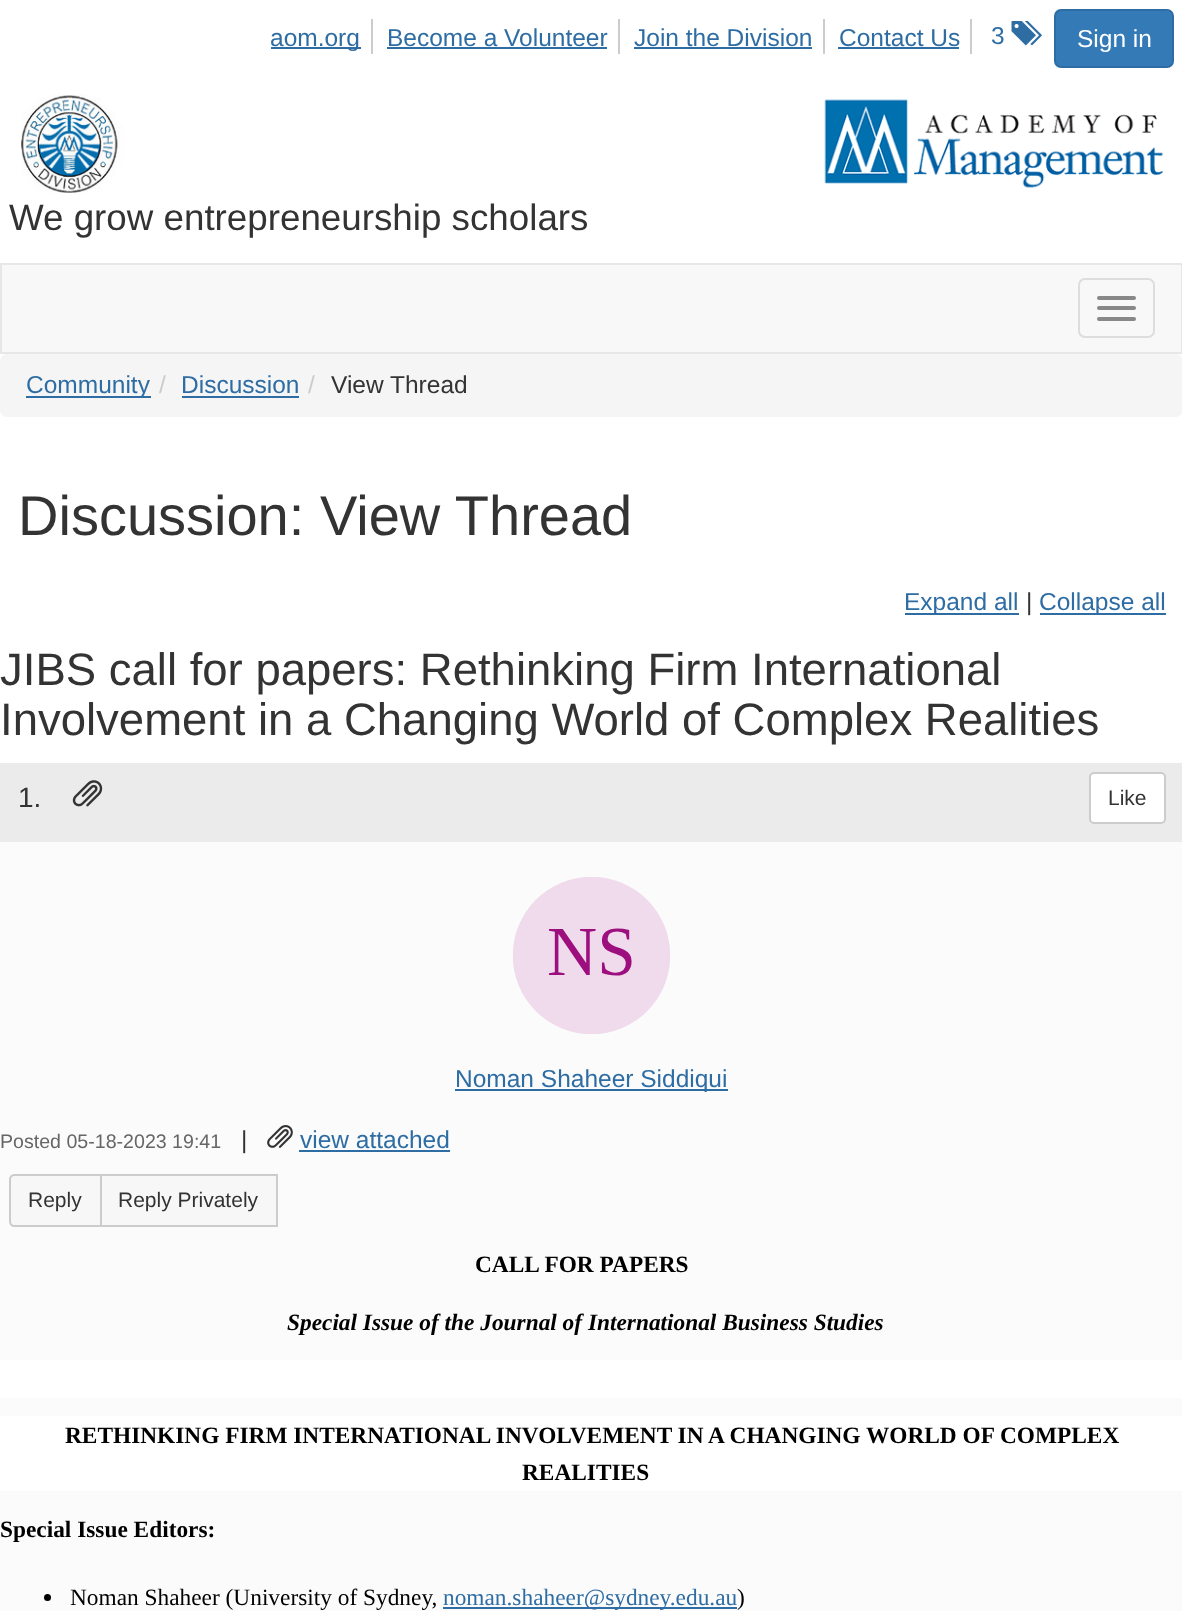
<?xml version="1.0" encoding="UTF-8"?>
<svg xmlns="http://www.w3.org/2000/svg" width="1182" height="1611">
    <rect width="100%" height="100%" fill="#FFFFFF"/>
    <rect x="371" y="19" width="2" height="35" fill="#CCCCCC"/>
    <rect x="271" y="47" width="90" height="2" fill="#2E6DA4"/>
    <text x="270" y="46" font-family="Liberation Sans" font-size="24.5" fill="#2E6DA4">aom.org</text>
    <rect x="618" y="19" width="2" height="35" fill="#CCCCCC"/>
    <text x="387" y="46" font-family="Liberation Sans" font-size="24.5" fill="#2E6DA4">Become a Volunteer</text>
    <rect x="387" y="47" width="220" height="2" fill="#2E6DA4"/>
    <rect x="823" y="19" width="2" height="35" fill="#CCCCCC"/>
    <text x="634" y="46" font-family="Liberation Sans" font-size="24.5" fill="#2E6DA4">Join the Division</text>
    <rect x="634" y="47" width="178" height="2" fill="#2E6DA4"/>
    <rect x="970" y="19" width="2" height="35" fill="#CCCCCC"/>
    <text x="839" y="46" font-family="Liberation Sans" font-size="24.5" fill="#2E6DA4">Contact Us</text>
    <rect x="838" y="47" width="121" height="2" fill="#2E6DA4"/>
    <text x="991" y="44" font-family="Liberation Sans" font-size="24.5" fill="#2E6DA4">3</text>
    <image x="1011" y="21" width="31" height="25" href="img_01.png"/>
    <rect x="1055" y="10" width="118" height="57" rx="6" fill="#337AB7" stroke="#2E6DA4" stroke-width="2"/>
    <text x="1077" y="47" font-family="Liberation Sans" font-size="24.5" fill="#FFFFFF">Sign in</text>
    <image x="21" y="94" width="1142" height="99" href="img_02.png"/>
    <text x="9" y="230" font-family="Liberation Sans" font-size="36.75" fill="#333333">We grow entrepreneurship scholars</text>
    <rect x="1" y="264" width="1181" height="89" fill="#F8F8F8" stroke="#E7E7E7" stroke-width="2"/>
    <rect x="1079" y="279" width="75" height="58" rx="6" fill="none" stroke="#DDDDDD" stroke-width="2"/>
    <rect x="1097" y="296" width="39" height="4" rx="2" fill="#888888"/>
    <rect x="1097" y="306" width="39" height="4" rx="2" fill="#888888"/>
    <rect x="1097" y="317" width="39" height="4" rx="2" fill="#888888"/>
    <rect x="0" y="354" width="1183" height="63" rx="7" fill="#F5F5F5"/>
    <rect x="26" y="396" width="125" height="2" fill="#2E6DA4"/>
    <text x="26" y="393" font-family="Liberation Sans" font-size="24.5" fill="#2E6DA4">Community</text>
    <text x="159" y="393" font-family="Liberation Sans" font-size="24.5" fill="#CCCCCC">/</text>
    <text x="181" y="393" font-family="Liberation Sans" font-size="24.5" fill="#2E6DA4">Discussion</text>
    <rect x="182" y="396" width="117" height="2" fill="#2E6DA4"/>
    <text x="308" y="393" font-family="Liberation Sans" font-size="24.5" fill="#CCCCCC">/</text>
    <text x="331" y="393" font-family="Liberation Sans" font-size="24.5" fill="#333333">View Thread</text>
    <text x="18" y="535" font-family="Liberation Sans" font-size="56" fill="#333333">Discussion: View Thread</text>
    <rect x="905" y="613" width="114" height="2" fill="#2E6DA4"/>
    <text x="904" y="610" font-family="Liberation Sans" font-size="24.5" fill="#2E6DA4">Expand all</text>
    <text x="1026" y="610" font-family="Liberation Sans" font-size="24.5" fill="#333333">|</text>
    <rect x="1040" y="613" width="126" height="2" fill="#2E6DA4"/>
    <text x="1039" y="610" font-family="Liberation Sans" font-size="24.5" fill="#2E6DA4">Collapse all</text>
    <text font-family="Liberation Sans" font-size="45.5" fill="#333333">
        <tspan x="0" y="685">JIBS call for papers: Rethinking Firm International</tspan>
        <tspan x="0" y="735">Involvement in a Changing World of Complex Realities</tspan>
    </text>
    <rect x="0" y="842" width="1182" height="769" fill="#FBFBFB"/>
    <rect x="0" y="763" width="1182" height="79" fill="#EBEBEB"/>
    <text x="18" y="807" font-family="Liberation Sans" font-size="28" fill="#333333">1.</text>
    <image x="72" y="780" width="31" height="27" href="img_03.png"/>
    <rect x="1090" y="773" width="75" height="50" rx="4" fill="#FFFFFF" stroke="#CCCCCC" stroke-width="2"/>
    <text x="1108" y="805" font-family="Liberation Sans" font-size="21" fill="#333333">Like</text>
    <image x="513" y="877" width="157" height="157" href="img_04.png"/>
    <rect x="455" y="1089" width="273" height="2" fill="#2E6DA4"/>
    <text x="455" y="1087" font-family="Liberation Sans" font-size="24.5" fill="#2E6DA4">Noman Shaheer Siddiqui</text>
    <text x="0" y="1148" font-family="Liberation Sans" font-size="19.6" fill="#666666">Posted 05-18-2023 19:41</text>
    <text x="241" y="1148" font-family="Liberation Sans" font-size="24.5" fill="#333333">|</text>
    <image x="267" y="1125" width="26" height="23" href="img_05.png"/>
    <text x="300" y="1148" font-family="Liberation Sans" font-size="24.5" fill="#2E6DA4">view attached</text>
    <rect x="299" y="1150" width="151" height="2" fill="#2E6DA4"/>
    <path d="M 14 1175 H 101 V 1226 H 14 C 12 1226 10 1224 10 1222 V 1179 C 10 1177 12 1175 14 1175 Z" fill="#F7F7F7" stroke="#CCCCCC" stroke-width="2"/>
    <text x="28" y="1207" font-family="Liberation Sans" font-size="21" fill="#333333">Reply</text>
    <rect x="101" y="1175" width="176" height="51" fill="#F7F7F7" stroke="#CCCCCC" stroke-width="2"/>
    <text x="118" y="1207" font-family="Liberation Sans" font-size="21" fill="#333333">Reply Privately</text>
    <text x="475" y="1272" font-family="Liberation Serif" font-size="23.35" font-weight="700" fill="#000000">CALL FOR PAPERS</text>
    <text x="287" y="1330" font-family="Liberation Serif" font-size="23.35" font-weight="700" font-style="italic" fill="#000000">Special Issue of the Journal of International Business Studies</text>
    <rect x="0" y="1360" width="1182" height="38" fill="#FFFFFF"/>
    <rect x="0" y="1416" width="1182" height="75" fill="#FFFFFF"/>
    <text x="65" y="1443" font-family="Liberation Serif" font-size="23.35" font-weight="700" fill="#000000">RETHINKING FIRM INTERNATIONAL INVOLVEMENT IN A CHANGING WORLD OF COMPLEX</text>
    <text x="522" y="1480" font-family="Liberation Serif" font-size="23.35" font-weight="700" fill="#000000">REALITIES</text>
    <text x="0" y="1537" font-family="Liberation Serif" font-size="23.35" font-weight="700" fill="#000000">Special Issue Editors:</text>
    <circle cx="47.5" cy="1597.5" r="3.5" fill="#000000"/>
    <text x="70" y="1605" font-family="Liberation Serif" font-size="23.35" fill="#000000">Noman Shaheer (University of Sydney,</text>
    <rect x="443" y="1607" width="294" height="2" fill="#2E6DA4"/>
    <text x="443" y="1605" font-family="Liberation Serif" font-size="23.35" fill="#2E6DA4">noman.shaheer@sydney.edu.au</text>
    <text x="737" y="1605" font-family="Liberation Serif" font-size="23.35" fill="#000000">)</text>
</svg>
